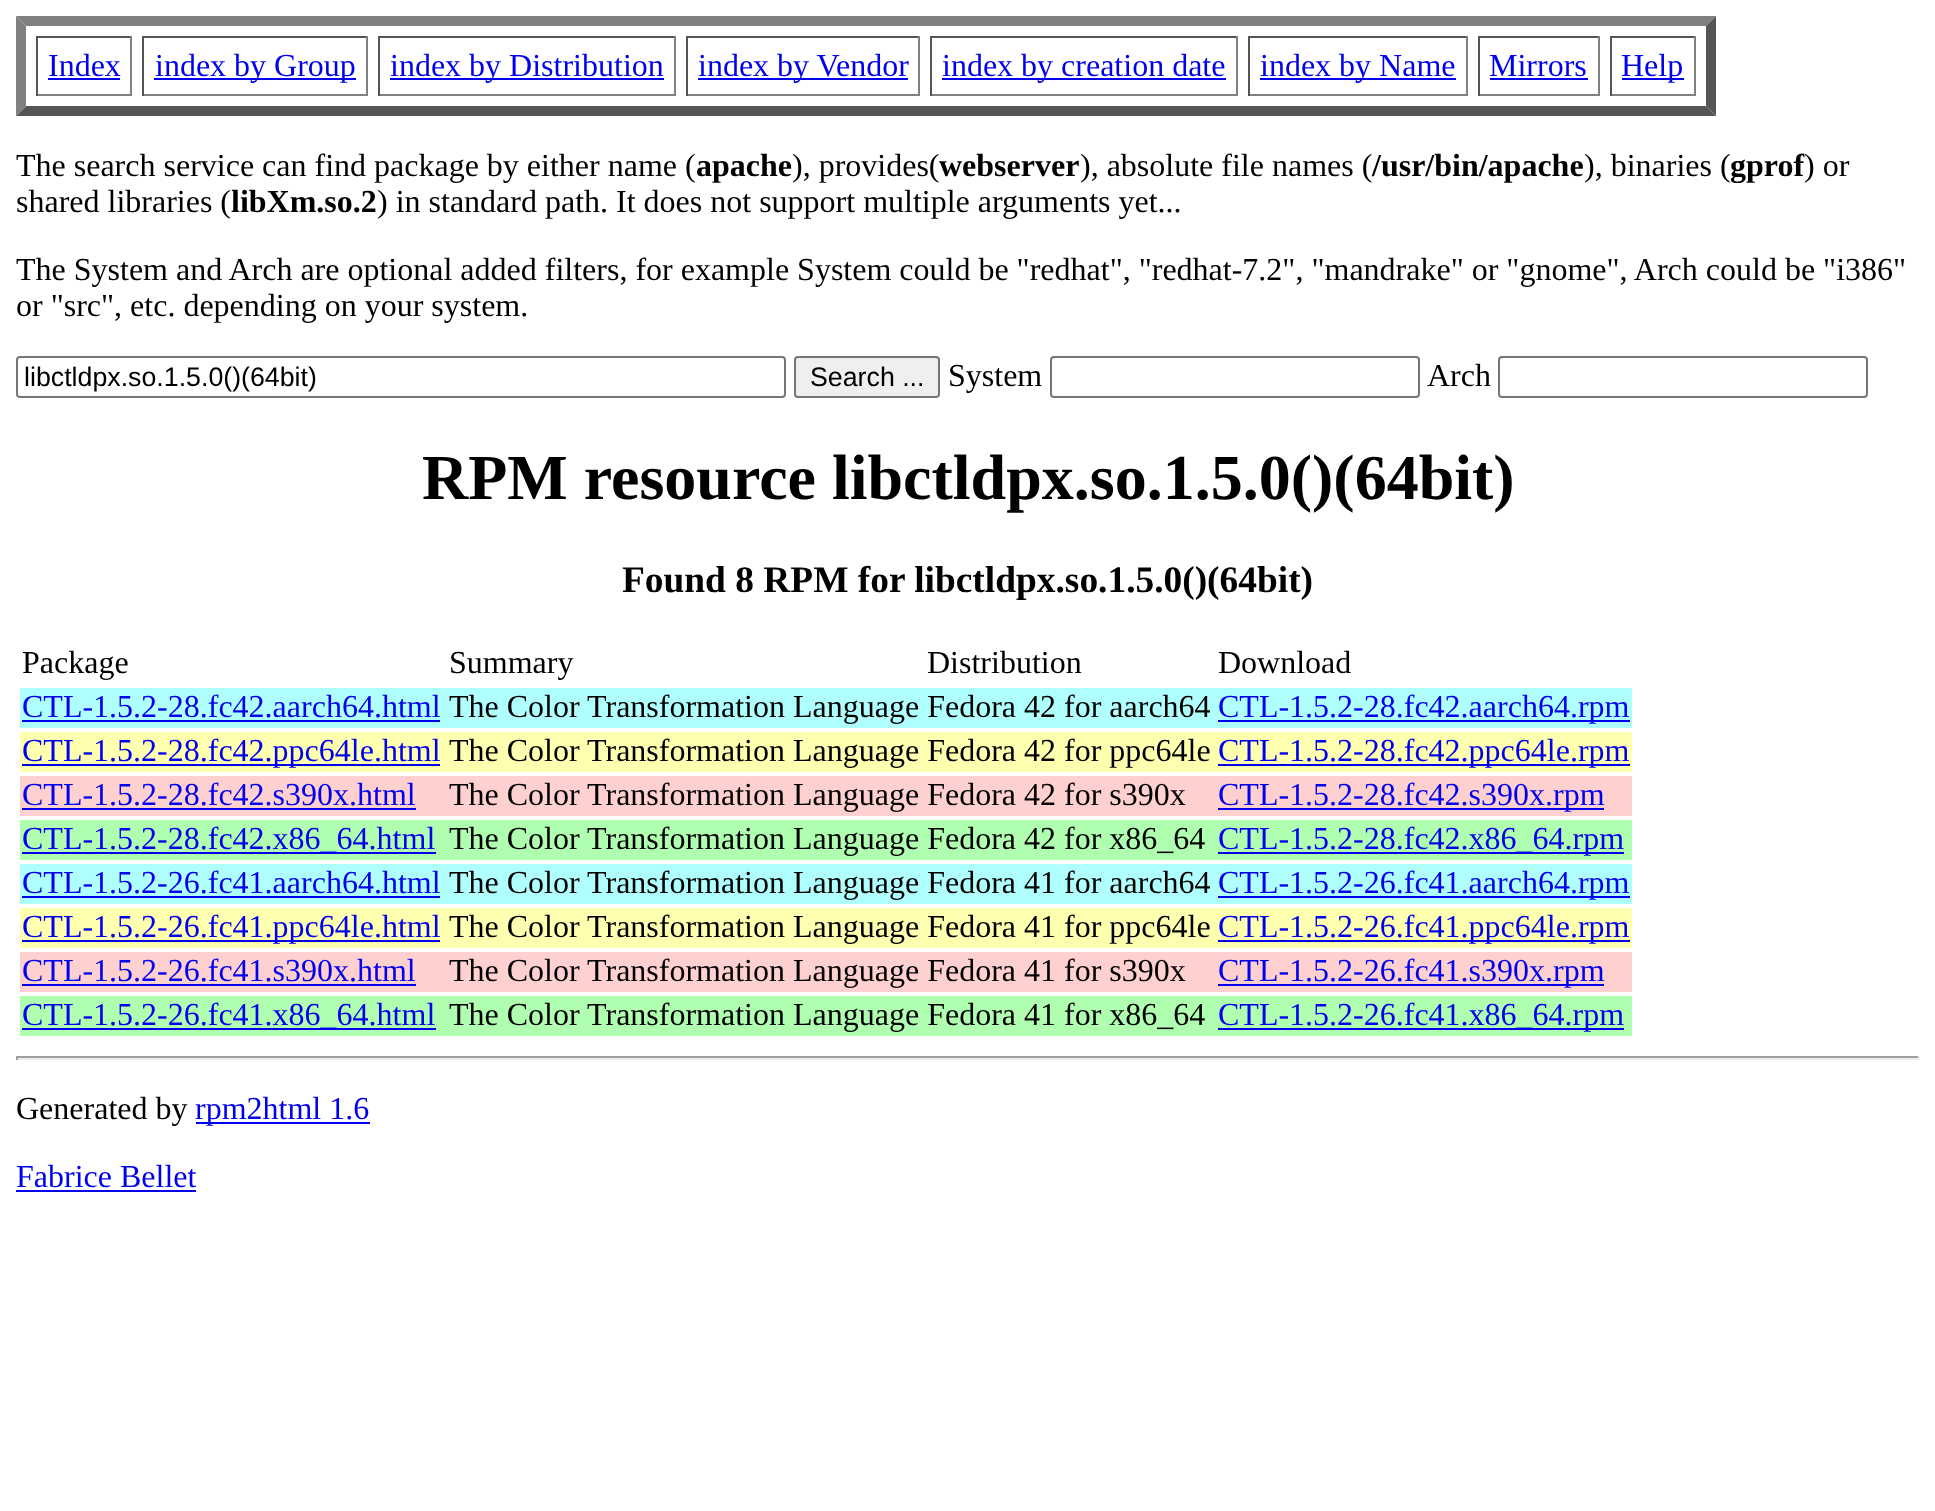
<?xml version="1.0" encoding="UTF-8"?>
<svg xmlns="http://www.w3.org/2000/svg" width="1935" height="1511">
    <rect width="100%" height="100%" fill="#FFFFFF"/>
    <path d="M 16 16 H 1716 L 1706 26 H 26 Z" fill="#808080"/>
    <path d="M 1716 16 V 116 L 1706 106 V 26 Z" fill="#555555"/>
    <path d="M 1716 116 H 16 L 26 106 H 1706 Z" fill="#555555"/>
    <path d="M 16 116 V 16 L 26 26 V 106 Z" fill="#808080"/>
    <rect x="36" y="36" width="96" height="2" fill="#555555"/>
    <rect x="130" y="36" width="2" height="60" fill="#808080"/>
    <rect x="36" y="94" width="96" height="2" fill="#808080"/>
    <rect x="36" y="36" width="2" height="60" fill="#555555"/>
    <text x="48" y="76" font-family="Liberation Serif" font-size="32" fill="#0000EE">Index</text>
    <rect x="48" y="78" width="72" height="2" fill="#0000EE"/>
    <rect x="142" y="36" width="226" height="2" fill="#555555"/>
    <rect x="366" y="36" width="2" height="60" fill="#808080"/>
    <rect x="142" y="94" width="226" height="2" fill="#808080"/>
    <rect x="142" y="36" width="2" height="60" fill="#555555"/>
    <rect x="154" y="78" width="202" height="2" fill="#0000EE"/>
    <text x="155" y="76" font-family="Liberation Serif" font-size="32" fill="#0000EE">index by Group</text>
    <rect x="378" y="36" width="298" height="2" fill="#555555"/>
    <rect x="674" y="36" width="2" height="60" fill="#808080"/>
    <rect x="378" y="94" width="298" height="2" fill="#808080"/>
    <rect x="378" y="36" width="2" height="60" fill="#555555"/>
    <rect x="390" y="78" width="274" height="2" fill="#0000EE"/>
    <text x="390" y="76" font-family="Liberation Serif" font-size="32" fill="#0000EE">index by Distribution</text>
    <rect x="686" y="36" width="234" height="2" fill="#555555"/>
    <rect x="918" y="36" width="2" height="60" fill="#808080"/>
    <rect x="686" y="94" width="234" height="2" fill="#808080"/>
    <rect x="686" y="36" width="2" height="60" fill="#555555"/>
    <rect x="698" y="78" width="210" height="2" fill="#0000EE"/>
    <text x="698" y="76" font-family="Liberation Serif" font-size="32" fill="#0000EE">index by Vendor</text>
    <rect x="930" y="36" width="308" height="2" fill="#555555"/>
    <rect x="1236" y="36" width="2" height="60" fill="#808080"/>
    <rect x="930" y="94" width="308" height="2" fill="#808080"/>
    <rect x="930" y="36" width="2" height="60" fill="#555555"/>
    <rect x="942" y="78" width="284" height="2" fill="#0000EE"/>
    <text x="942" y="76" font-family="Liberation Serif" font-size="32" fill="#0000EE">index by creation date</text>
    <rect x="1248" y="36" width="220" height="2" fill="#555555"/>
    <rect x="1466" y="36" width="2" height="60" fill="#808080"/>
    <rect x="1248" y="94" width="220" height="2" fill="#808080"/>
    <rect x="1248" y="36" width="2" height="60" fill="#555555"/>
    <rect x="1260" y="78" width="196" height="2" fill="#0000EE"/>
    <text x="1260" y="76" font-family="Liberation Serif" font-size="32" fill="#0000EE">index by Name</text>
    <rect x="1478" y="36" width="122" height="2" fill="#555555"/>
    <rect x="1598" y="36" width="2" height="60" fill="#808080"/>
    <rect x="1478" y="94" width="122" height="2" fill="#808080"/>
    <rect x="1478" y="36" width="2" height="60" fill="#555555"/>
    <text x="1489" y="76" font-family="Liberation Serif" font-size="32" fill="#0000EE">Mirrors</text>
    <rect x="1490" y="78" width="98" height="2" fill="#0000EE"/>
    <rect x="1610" y="36" width="86" height="2" fill="#555555"/>
    <rect x="1694" y="36" width="2" height="60" fill="#808080"/>
    <rect x="1610" y="94" width="86" height="2" fill="#808080"/>
    <rect x="1610" y="36" width="2" height="60" fill="#555555"/>
    <rect x="1622" y="78" width="62" height="2" fill="#0000EE"/>
    <text x="1621" y="76" font-family="Liberation Serif" font-size="32" fill="#0000EE">Help</text>
    <text x="16" y="176" font-family="Liberation Serif" font-size="32" fill="#000000">The search service can find package by either name (</text>
    <text x="696" y="176" font-family="Liberation Serif" font-size="32" font-weight="700" fill="#000000">apache</text>
    <text x="792" y="176" font-family="Liberation Serif" font-size="32" fill="#000000">), provides(</text>
    <text x="939" y="176" font-family="Liberation Serif" font-size="32" font-weight="700" fill="#000000">webserver</text>
    <text x="1080" y="176" font-family="Liberation Serif" font-size="32" fill="#000000">), absolute file names (</text>
    <text x="1372" y="176" font-family="Liberation Serif" font-size="32" font-weight="700" fill="#000000">/usr/bin/apache</text>
    <text x="1584" y="176" font-family="Liberation Serif" font-size="32" fill="#000000">), binaries (</text>
    <text x="1730" y="176" font-family="Liberation Serif" font-size="32" font-weight="700" fill="#000000">gprof</text>
    <text x="1804" y="176" font-family="Liberation Serif" font-size="32" fill="#000000">) or</text>
    <text x="16" y="212" font-family="Liberation Serif" font-size="32" fill="#000000">shared libraries (</text>
    <text x="231" y="212" font-family="Liberation Serif" font-size="32" font-weight="700" fill="#000000">libXm.so.2</text>
    <text x="377" y="212" font-family="Liberation Serif" font-size="32" fill="#000000">) in standard path. It does not support multiple arguments yet...</text>
    <text font-family="Liberation Serif" font-size="32" fill="#000000">
        <tspan x="16" y="280">The System and Arch are optional added filters, for example System could be "redhat", "redhat-7.2", "mandrake" or "gnome", Arch could be "i386"</tspan>
        <tspan x="16" y="316">or "src", etc. depending on your system.</tspan>
    </text>
    <rect x="17" y="357" width="768" height="40" rx="3" fill="none" stroke="#767676" stroke-width="2"/>
    <text x="24" y="386" font-family="Liberation Sans" font-size="26.75" fill="#000000">libctldpx.so.1.5.0()(64bit)</text>
    <rect x="795" y="357" width="144" height="40" rx="3" fill="#EFEFEF" stroke="#767676" stroke-width="2"/>
    <text x="810" y="386" font-family="Liberation Sans" font-size="26.75" fill="#000000">Search ...</text>
    <text x="948" y="386" font-family="Liberation Serif" font-size="32" fill="#000000">System</text>
    <rect x="1051" y="357" width="368" height="40" rx="3" fill="none" stroke="#767676" stroke-width="2"/>
    <text x="1427" y="386" font-family="Liberation Serif" font-size="32" fill="#000000">Arch</text>
    <rect x="1499" y="357" width="368" height="40" rx="3" fill="none" stroke="#767676" stroke-width="2"/>
    <text x="422" y="499" font-family="Liberation Serif" font-size="64" font-weight="700" fill="#000000">RPM resource libctldpx.so.1.5.0()(64bit)</text>
    <text x="622" y="592" font-family="Liberation Serif" font-size="37.4" font-weight="700" fill="#000000">Found 8 RPM for libctldpx.so.1.5.0()(64bit)</text>
    <text x="22" y="673" font-family="Liberation Serif" font-size="32" fill="#000000">Package</text>
    <text x="449" y="673" font-family="Liberation Serif" font-size="32" fill="#000000">Summary</text>
    <text x="927" y="673" font-family="Liberation Serif" font-size="32" fill="#000000">Distribution</text>
    <text x="1218" y="673" font-family="Liberation Serif" font-size="32" fill="#000000">Download</text>
    <rect x="20" y="688" width="1612" height="40" fill="#B0FFFF"/>
    <text x="22" y="717" font-family="Liberation Serif" font-size="32" fill="#0000EE">CTL-1.5.2-28.fc42.aarch64.html</text>
    <rect x="22" y="720" width="418" height="2" fill="#0000EE"/>
    <text x="449" y="717" font-family="Liberation Serif" font-size="32" fill="#000000">The Color Transformation Language Fedora 42 for aarch64</text>
    <rect x="1218" y="720" width="412" height="2" fill="#0000EE"/>
    <text x="1218" y="717" font-family="Liberation Serif" font-size="32" fill="#0000EE">CTL-1.5.2-28.fc42.aarch64.rpm</text>
    <rect x="20" y="732" width="1612" height="40" fill="#FFFFB0"/>
    <rect x="22" y="764" width="418" height="2" fill="#0000EE"/>
    <text x="22" y="761" font-family="Liberation Serif" font-size="32" fill="#0000EE">CTL-1.5.2-28.fc42.ppc64le.html</text>
    <text x="449" y="761" font-family="Liberation Serif" font-size="32" fill="#000000">The Color Transformation Language Fedora 42 for ppc64le</text>
    <rect x="1218" y="764" width="412" height="2" fill="#0000EE"/>
    <text x="1218" y="761" font-family="Liberation Serif" font-size="32" fill="#0000EE">CTL-1.5.2-28.fc42.ppc64le.rpm</text>
    <rect x="20" y="776" width="1612" height="40" fill="#FFD0D0"/>
    <text x="22" y="805" font-family="Liberation Serif" font-size="32" fill="#0000EE">CTL-1.5.2-28.fc42.s390x.html</text>
    <rect x="22" y="808" width="394" height="2" fill="#0000EE"/>
    <text x="449" y="805" font-family="Liberation Serif" font-size="32" fill="#000000">The Color Transformation Language Fedora 42 for s390x</text>
    <rect x="1218" y="808" width="386" height="2" fill="#0000EE"/>
    <text x="1218" y="805" font-family="Liberation Serif" font-size="32" fill="#0000EE">CTL-1.5.2-28.fc42.s390x.rpm</text>
    <rect x="20" y="820" width="1612" height="40" fill="#B0FFB0"/>
    <rect x="22" y="852" width="414" height="2" fill="#0000EE"/>
    <text x="22" y="849" font-family="Liberation Serif" font-size="32" fill="#0000EE">CTL-1.5.2-28.fc42.x86_64.html</text>
    <text x="449" y="849" font-family="Liberation Serif" font-size="32" fill="#000000">The Color Transformation Language Fedora 42 for x86_64</text>
    <rect x="1218" y="852" width="406" height="2" fill="#0000EE"/>
    <text x="1218" y="849" font-family="Liberation Serif" font-size="32" fill="#0000EE">CTL-1.5.2-28.fc42.x86_64.rpm</text>
    <rect x="20" y="864" width="1612" height="40" fill="#B0FFFF"/>
    <text x="22" y="893" font-family="Liberation Serif" font-size="32" fill="#0000EE">CTL-1.5.2-26.fc41.aarch64.html</text>
    <rect x="22" y="896" width="418" height="2" fill="#0000EE"/>
    <text x="449" y="893" font-family="Liberation Serif" font-size="32" fill="#000000">The Color Transformation Language Fedora 41 for aarch64</text>
    <rect x="1218" y="896" width="412" height="2" fill="#0000EE"/>
    <text x="1218" y="893" font-family="Liberation Serif" font-size="32" fill="#0000EE">CTL-1.5.2-26.fc41.aarch64.rpm</text>
    <rect x="20" y="908" width="1612" height="40" fill="#FFFFB0"/>
    <rect x="22" y="940" width="418" height="2" fill="#0000EE"/>
    <text x="22" y="937" font-family="Liberation Serif" font-size="32" fill="#0000EE">CTL-1.5.2-26.fc41.ppc64le.html</text>
    <text x="449" y="937" font-family="Liberation Serif" font-size="32" fill="#000000">The Color Transformation Language Fedora 41 for ppc64le</text>
    <rect x="1218" y="940" width="412" height="2" fill="#0000EE"/>
    <text x="1218" y="937" font-family="Liberation Serif" font-size="32" fill="#0000EE">CTL-1.5.2-26.fc41.ppc64le.rpm</text>
    <rect x="20" y="952" width="1612" height="40" fill="#FFD0D0"/>
    <text x="22" y="981" font-family="Liberation Serif" font-size="32" fill="#0000EE">CTL-1.5.2-26.fc41.s390x.html</text>
    <rect x="22" y="984" width="394" height="2" fill="#0000EE"/>
    <text x="449" y="981" font-family="Liberation Serif" font-size="32" fill="#000000">The Color Transformation Language Fedora 41 for s390x</text>
    <rect x="1218" y="984" width="386" height="2" fill="#0000EE"/>
    <text x="1218" y="981" font-family="Liberation Serif" font-size="32" fill="#0000EE">CTL-1.5.2-26.fc41.s390x.rpm</text>
    <rect x="20" y="996" width="1612" height="40" fill="#B0FFB0"/>
    <rect x="22" y="1028" width="414" height="2" fill="#0000EE"/>
    <text x="22" y="1025" font-family="Liberation Serif" font-size="32" fill="#0000EE">CTL-1.5.2-26.fc41.x86_64.html</text>
    <text x="449" y="1025" font-family="Liberation Serif" font-size="32" fill="#000000">The Color Transformation Language Fedora 41 for x86_64</text>
    <rect x="1218" y="1028" width="406" height="2" fill="#0000EE"/>
    <text x="1218" y="1025" font-family="Liberation Serif" font-size="32" fill="#0000EE">CTL-1.5.2-26.fc41.x86_64.rpm</text>
    <rect x="16" y="1056" width="1904" height="2" fill="#9F9F9F"/>
    <rect x="1918" y="1056" width="2" height="4" fill="#EEEEEE"/>
    <rect x="16" y="1058" width="1904" height="2" fill="#EEEEEE"/>
    <rect x="16" y="1056" width="2" height="4" fill="#9F9F9F"/>
    <text x="16" y="1119" font-family="Liberation Serif" font-size="32" fill="#000000">Generated by</text>
    <rect x="196" y="1122" width="174" height="2" fill="#0000EE"/>
    <text x="195" y="1119" font-family="Liberation Serif" font-size="32" fill="#0000EE">rpm2html 1.6</text>
    <text x="16" y="1187" font-family="Liberation Serif" font-size="32" fill="#0000EE">Fabrice Bellet</text>
    <rect x="16" y="1190" width="180" height="2" fill="#0000EE"/>
</svg>
